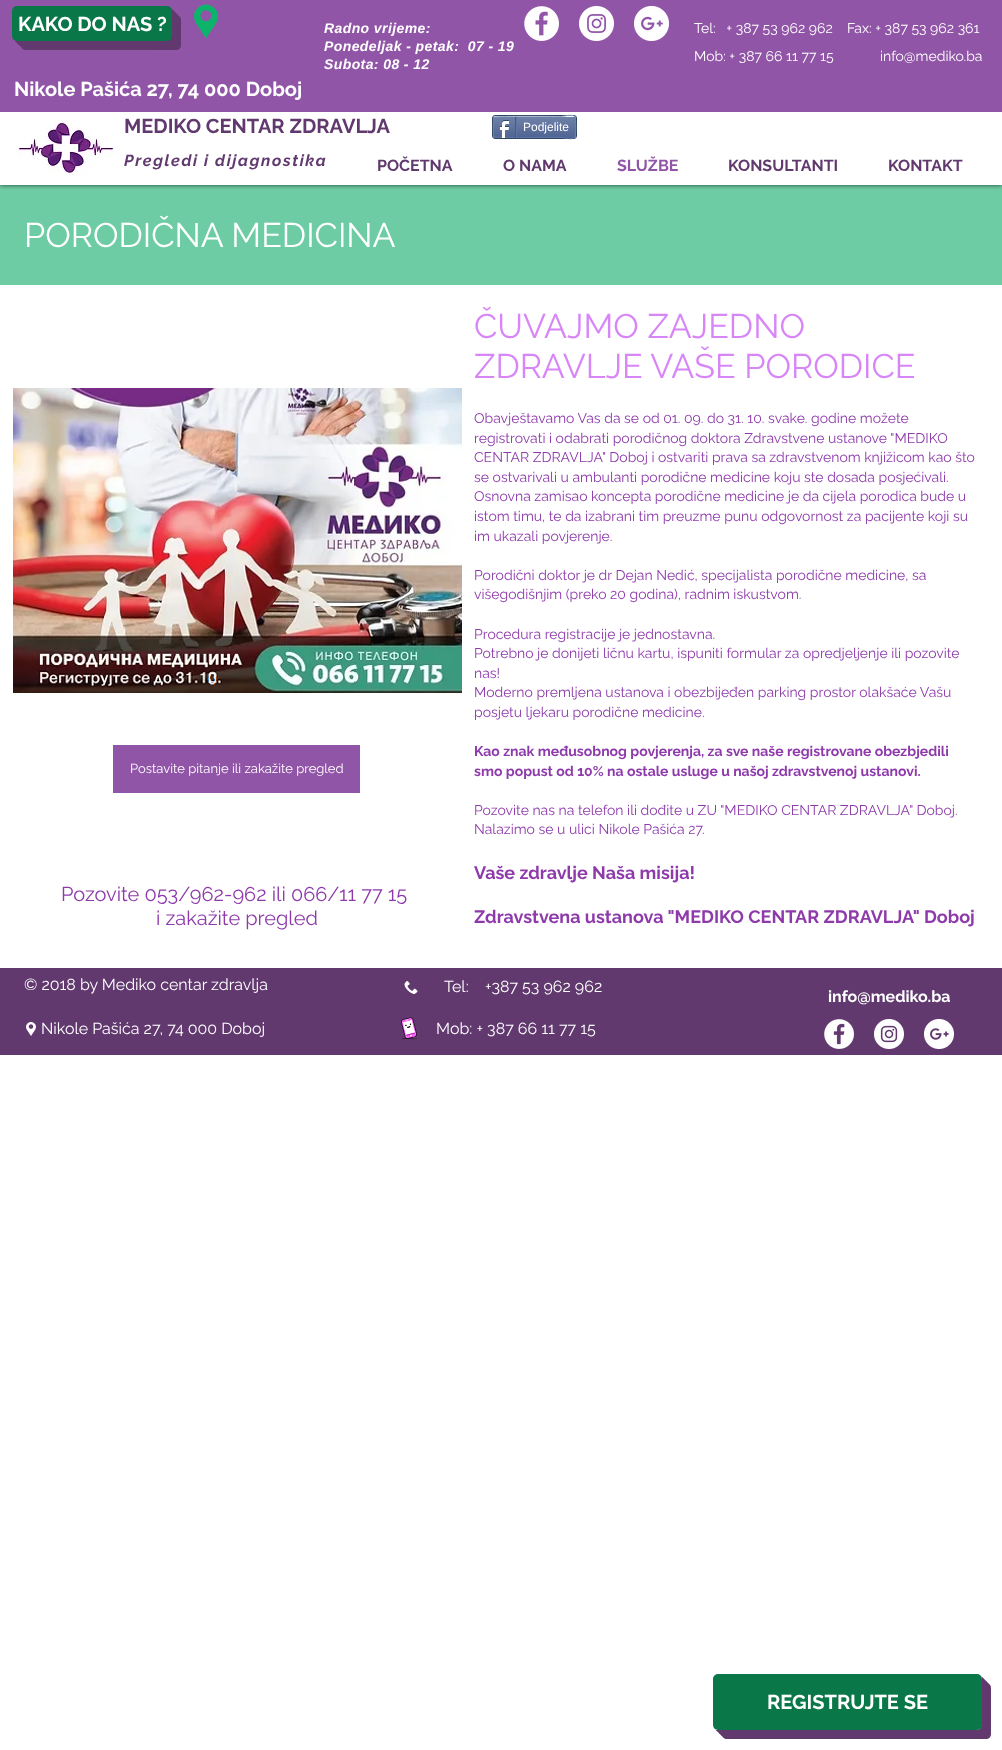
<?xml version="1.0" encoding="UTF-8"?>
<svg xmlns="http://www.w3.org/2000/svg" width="1002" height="1750">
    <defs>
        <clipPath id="clip1"><rect x="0" y="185" width="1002" height="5"/></clipPath>
        <filter id="blur1" x="-50%" y="-200%" width="200%" height="500%"><feGaussianBlur stdDeviation="2.5"/></filter>
    </defs>
    <rect width="100%" height="100%" fill="#FFFFFF"/>
    <rect x="0" y="185" width="1002" height="100" fill="#6DCCA3"/>
    <g clip-path="url(#clip1)">
        <rect x="0" y="0" width="1002" height="185" fill="#000000" fill-opacity="0.7" filter="url(#blur1)"/>
    </g>
    <rect x="0" y="0" width="1002" height="112" fill="#9155A7"/>
    <path d="M 21 41 V 45 C 21 48 23 50 26 50 H 176 C 179 50 181 48 181 45 V 20 C 181 17 179 15 176 15 H 172 V 36 C 172 39 170 41 167 41 Z" fill="#61396F"/>
    <path d="M 19 41 C 19 44 20 48 24 48 H 149 C 184 48 179 53 179 22 C 179 16 179 13 172 13 V 36 C 172 39 170 41 167 41 Z" fill="#61396F"/>
    <path d="M 17 41 C 17 44 19 46 22 46 H 172 C 175 46 177 44 177 41 V 16 C 177 13 175 11 172 11 V 36 C 172 39 170 41 167 41 Z" fill="#61396F"/>
    <path d="M 15 41 C 16 43 18 44 20 44 H 170 C 173 44 175 42 175 39 V 14 C 175 12 174 10 172 9 V 28 C 172 32 174 41 167 41 Z" fill="#61396F"/>
    <path d="M 14 40 C 15 41 16 42 18 42 H 168 C 171 42 173 40 173 37 V 12 C 173 10 172 9 171 8 C 172 9 172 10 172 11 V 36 C 172 39 170 41 167 41 H 17 C 16 41 15 41 14 40 Z" fill="#61396F"/>
    <rect x="12" y="6" width="160" height="35" rx="5" fill="#097747"/>
    <text x="18" y="31" font-family="Raleway" font-size="20" font-weight="700" fill="#FFFFFF">KAKO DO NAS ?</text>
    <image x="194" y="4" width="24" height="35" href="img_01.png"/>
    <text font-family="Liberation Sans" font-size="14" font-weight="700" font-style="italic" letter-spacing="0.4" fill="#FFFFFF" xml:space="preserve"><tspan x="324" y="33">Radno vrijeme:</tspan><tspan x="324" y="51">Ponedeljak - petak:  07 - 19</tspan><tspan x="324" y="69">Subota: 08 - 12</tspan></text>
    <image x="524" y="6" width="35" height="35" href="img_02.png"/>
    <image x="579" y="6" width="35" height="35" href="img_03.png"/>
    <image x="634" y="6" width="35" height="35" href="img_04.png"/>
    <text x="694" y="33" font-family="Raleway" font-size="14" fill="#FFFFFF" xml:space="preserve">Tel:   + 387 53 962 962</text>
    <text x="847" y="33" font-family="Raleway" font-size="14" fill="#FFFFFF">Fax: + 387 53 962 361</text>
    <text x="694" y="61" font-family="Raleway" font-size="14" fill="#FFFFFF">Mob: + 387 66 11 77 15</text>
    <text x="880" y="61" font-family="Raleway" font-size="14" fill="#FFFFFF">info@mediko.ba</text>
    <text x="14" y="96" font-family="Raleway" font-size="20" font-weight="700" fill="#FFFFFF">Nikole Pašića 27, 74 000 Doboj</text>
    <image x="17" y="121" width="101" height="54" href="img_05.png"/>
    <text x="124" y="133" font-family="Raleway" font-size="20" font-weight="700" fill="#61396F">MEDIKO CENTAR ZDRAVLJA</text>
    <rect x="492.5" y="115.5" width="84" height="23" rx="2.5" fill="none" stroke="#2D4565"/>
    <image x="493" y="117" width="83" height="21" href="img_06.png"/>
    <path d="M 494 117 C 495 116 554 116.5 561 116.5 C 565.5 116.5 571.5 113.5 575 117" fill="none" stroke="#9AABC6"/>
    <path d="M 575 117 C 576 117.5 576 136.5 575 137" fill="none" stroke="#6F83AD"/>
    <path d="M 575 137 C 571.5 140.5 565.5 137.5 561 137.5 C 554 137.5 495 138 494 137" fill="none" stroke="#6176A3"/>
    <path d="M 494 137 C 493 136.5 493 117.5 494 117" fill="none" stroke="#6F83AD"/>
    <image x="499" y="120" width="10" height="18" href="img_07.png"/>
    <rect x="515" y="117" width="1" height="21" fill="#425E85"/>
    <text x="523" y="131" font-family="Liberation Sans" font-size="12" fill="#FFFFFF">Podjelite</text>
    <rect x="516" y="117" width="1" height="20" fill="#6176A3"/>
    <text x="124" y="166" font-family="Raleway" font-size="16" font-weight="700" font-style="italic" letter-spacing="1.6" fill="#61396F">Pregledi i dijagnostika</text>
    <text x="377" y="171" font-family="Raleway" font-size="16" font-weight="700" fill="#61396F">POČETNA</text>
    <text x="503" y="171" font-family="Raleway" font-size="16" font-weight="700" fill="#61396F">O NAMA</text>
    <text x="617" y="171" font-family="Raleway" font-size="16" font-weight="700" fill="#9155A7">SLUŽBE</text>
    <text x="728" y="171" font-family="Raleway" font-size="16" font-weight="700" fill="#61396F">KONSULTANTI</text>
    <text x="888" y="171" font-family="Raleway" font-size="16" font-weight="700" fill="#61396F">KONTAKT</text>
    <text x="24" y="247" font-family="Raleway" font-size="34" fill="#FFFFFF">PORODIČNA MEDICINA</text>
    <text font-family="Raleway" font-size="34" fill="#D886F7">
        <tspan x="474" y="338">ČUVAJMO ZAJEDNO</tspan>
        <tspan x="474" y="378">ZDRAVLJE VAŠE PORODICE</tspan>
    </text>
    <image x="13" y="388" width="449" height="305" href="img_08.png"/>
    <text font-family="Raleway" font-size="14" fill="#8E3AAB">
        <tspan x="474" y="423">Obavještavamo Vas da se od 01. 09. do 31. 10. svake. godine možete</tspan>
        <tspan x="474" y="443">registrovati i odabrati porodičnog doktora Zdravstvene ustanove "MEDIKO</tspan>
        <tspan x="474" y="462">CENTAR ZDRAVLJA" Doboj i ostvariti prava sa zdravstvenom knjižicom kao što</tspan>
        <tspan x="474" y="482">se ostvarivali u ambulanti porodične medicine koju ste dosada posjećivali.</tspan>
        <tspan x="474" y="501">Osnovna zamisao koncepta porodične medicine je da cijela porodica bude u</tspan>
        <tspan x="474" y="521">istom timu, te da izabrani tim preuzme punu odgovornost za pacijente koji su</tspan>
        <tspan x="474" y="541">im ukazali povjerenje.</tspan>
    </text>
    <text font-family="Raleway" font-size="14" fill="#8E3AAB">
        <tspan x="474" y="580">Porodični doktor je dr Dejan Nedić, specijalista porodične medicine, sa</tspan>
        <tspan x="474" y="599">višegodišnjim (preko 20 godina), radnim iskustvom.</tspan>
    </text>
    <text font-family="Raleway" font-size="14" fill="#8E3AAB">
        <tspan x="474" y="639">Procedura registracije je jednostavna.</tspan>
        <tspan x="474" y="658">Potrebno je donijeti ličnu kartu, ispuniti formular za opredjeljenje ili pozovite</tspan>
        <tspan x="474" y="678">nas!</tspan>
        <tspan x="474" y="697">Moderno premljena ustanova i obezbijeđen parking prostor olakšaće Vašu</tspan>
        <tspan x="474" y="717">posjetu ljekaru porodične medicine.</tspan>
    </text>
    <text font-family="Raleway" font-size="14" font-weight="700" fill="#8E3AAB">
        <tspan x="474" y="756">Kao znak međusobnog povjerenja, za sve naše registrovane obezbjedili</tspan>
        <tspan x="474" y="776">smo popust od 10% na ostale usluge u našoj zdravstvenoj ustanovi.</tspan>
    </text>
    <text font-family="Raleway" font-size="14" fill="#8E3AAB">
        <tspan x="474" y="815">Pozovite nas na telefon ili dođite u ZU "MEDIKO CENTAR ZDRAVLJA" Doboj.</tspan>
        <tspan x="474" y="834">Nalazimo se u ulici Nikole Pašića 27.</tspan>
    </text>
    <text x="474" y="879" font-family="Raleway" font-size="18" font-weight="700" fill="#8E3AAB">Vaše zdravlje Naša misija!</text>
    <text x="474" y="923" font-family="Raleway" font-size="18" font-weight="700" fill="#8E3AAB">Zdravstvena ustanova "MEDIKO CENTAR ZDRAVLJA" Doboj</text>
    <rect x="113" y="745" width="247" height="48" fill="#9155A7"/>
    <text x="130" y="773" font-family="Raleway" font-size="13" fill="#FFFFFF">Postavite pitanje ili zakažite pregled</text>
    <text x="61" y="901" font-family="Raleway" font-size="20" fill="#8E3AAB">Pozovite 053/962-962 ili 066/11 77 15</text>
    <text x="156" y="925" font-family="Raleway" font-size="20" fill="#8E3AAB">i zakažite pregled</text>
    <rect x="0" y="968" width="1002" height="87" fill="#61396F"/>
    <text x="24" y="990" font-family="Raleway" font-size="16" fill="#FFFFFF">© 2018 by Mediko centar zdravlja</text>
    <image x="404" y="981" width="14" height="13" href="img_09.png"/>
    <text x="444" y="992" font-family="Raleway" font-size="16" fill="#FFFFFF" xml:space="preserve">Tel:    +387 53 962 962</text>
    <text x="828" y="1002" font-family="Raleway" font-size="16" font-weight="700" fill="#FFFFFF">info@mediko.ba</text>
    <image x="26" y="1022" width="10" height="14" href="img_10.png"/>
    <text x="41" y="1034" font-family="Raleway" font-size="16" fill="#FFFFFF">Nikole Pašića 27, 74 000 Doboj</text>
    <image x="401" y="1017" width="16" height="23" href="img_11.png"/>
    <text x="436" y="1034" font-family="Raleway" font-size="16" fill="#FFFFFF">Mob: + 387 66 11 77 15</text>
    <image x="824" y="1019" width="30" height="30" href="img_12.png"/>
    <image x="874" y="1019" width="30" height="30" href="img_13.png"/>
    <image x="924" y="1019" width="30" height="30" href="img_14.png"/>
    <path d="M 722 1730 V 1734 C 722 1737 724 1739 727 1739 H 986 C 989 1739 991 1737 991 1734 V 1688 C 991 1685 989 1683 986 1683 H 982 V 1725 C 982 1728 980 1730 977 1730 Z" fill="#61396F"/>
    <path d="M 720 1730 V 1732 C 720 1735 722 1737 725 1737 H 984 C 987 1737 989 1735 989 1732 V 1686 C 989 1683 987 1681 984 1681 H 982 V 1725 C 982 1728 980 1730 977 1730 Z" fill="#61396F"/>
    <path d="M 718 1730 C 718 1733 720 1735 723 1735 H 982 C 985 1735 987 1733 987 1730 V 1684 C 987 1681 985 1679 982 1679 V 1725 C 982 1728 980 1730 977 1730 Z" fill="#61396F"/>
    <path d="M 716 1730 C 717 1732 719 1733 721 1733 H 980 C 983 1733 985 1731 985 1728 V 1682 C 985 1680 984 1678 982 1677 V 1717 C 982 1721 984 1730 977 1730 Z" fill="#61396F"/>
    <path d="M 715 1729 C 716 1730 717 1731 719 1731 H 978 C 981 1731 983 1729 983 1726 V 1680 C 983 1678 982 1677 981 1676 C 982 1677 982 1678 982 1679 V 1725 C 982 1728 980 1730 977 1730 H 718 C 717 1730 716 1730 715 1729 Z" fill="#61396F"/>
    <rect x="713" y="1674" width="269" height="56" rx="5" fill="#097747"/>
    <text x="767" y="1709" font-family="Raleway" font-size="20" font-weight="700" fill="#FFFFFF">REGISTRUJTE SE</text>
</svg>
